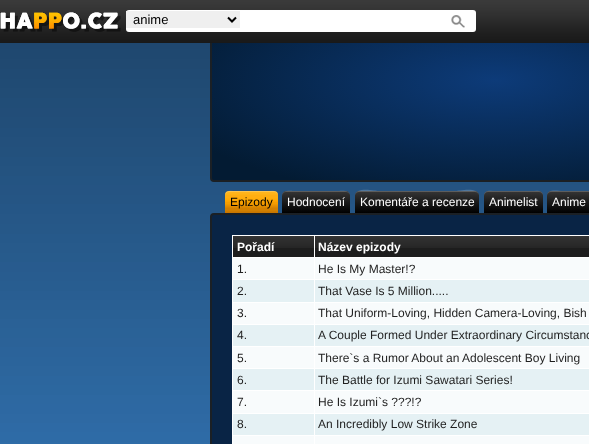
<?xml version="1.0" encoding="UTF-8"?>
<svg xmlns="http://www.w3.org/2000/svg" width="589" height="444">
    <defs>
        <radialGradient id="g1" gradientUnits="userSpaceOnUse" cx="0" cy="0" r="1" gradientTransform="matrix(400 0 0 141 495 80)"><stop offset="0" stop-color="#0D3B79"/><stop offset="0.87" stop-color="#031B33"/></radialGradient>
        <linearGradient id="g2" gradientUnits="userSpaceOnUse" x1="316" y1="191" x2="316" y2="213"><stop offset="0" stop-color="#363636"/><stop offset="1" stop-color="#000000"/></linearGradient>
        <linearGradient id="g3" gradientUnits="userSpaceOnUse" x1="417" y1="191" x2="417" y2="213"><stop offset="0" stop-color="#363636"/><stop offset="1" stop-color="#000000"/></linearGradient>
        <linearGradient id="g4" gradientUnits="userSpaceOnUse" x1="514" y1="191" x2="514" y2="213"><stop offset="0" stop-color="#363636"/><stop offset="1" stop-color="#000000"/></linearGradient>
        <linearGradient id="g5" gradientUnits="userSpaceOnUse" x1="588" y1="191" x2="588" y2="213"><stop offset="0" stop-color="#363636"/><stop offset="1" stop-color="#000000"/></linearGradient>
    </defs>
    <rect width="100%" height="100%" fill="#FFFFFF"/>
    <image x="0" y="43" width="589" height="401" href="img_01.png"/>
    <rect x="212" y="43" width="377" height="137" fill="url(#g1)"/>
    <rect x="211" y="-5" width="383" height="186" rx="3" fill="none" stroke="#1B2025" stroke-width="2"/>
    <image x="0" y="0" width="589" height="43" href="img_02.png"/>
    <image x="0" y="12" width="121" height="20" href="img_03.png"/>
    <rect x="126" y="10" width="350" height="22" rx="3" fill="#FFFFFF"/>
    <rect x="126" y="11" width="114" height="17" fill="#EFEFEF"/>
    <path d="M 228 17.5 L 232 21.5 L 236 17.5" fill="none" stroke="#000000" stroke-width="2"/>
    <text x="133" y="24" font-family="Liberation Sans" font-size="13" fill="#000000">anime</text>
    <image x="451" y="15" width="14" height="13" href="img_04.png"/>
    <image x="225" y="191" width="53" height="22" href="img_05.png"/>
    <text x="230" y="206" font-family="Liberation Sans" font-size="12" fill="#000000">Epizody</text>
    <path d="M 229 192 H 274 C 276 192 278 194 278 196 C 278 189 271 191 266 191 H 236 C 232 191 225 189 225 196 C 225 194 227 192 229 192 Z" fill="#FFFFFF" fill-opacity="0.2"/>
    <path d="M 286 191 H 346 C 348 191 350 193 350 195 V 213 H 282 V 195 C 282 193 284 191 286 191 Z" fill="url(#g2)"/>
    <text x="287" y="206" font-family="Liberation Sans" font-size="12" fill="#FFFFFF">Hodnocení</text>
    <path d="M 286 192 H 346 C 348 192 350 194 350 196 C 350 189 341 191 336 191 H 296 C 291 191 282 189 282 196 C 282 194 284 192 286 192 Z" fill="#FFFFFF" fill-opacity="0.2"/>
    <path d="M 359 191 H 475 C 477 191 479 193 479 195 V 213 H 355 V 195 C 355 193 357 191 359 191 Z" fill="url(#g3)"/>
    <text x="360" y="206" font-family="Liberation Sans" font-size="12" fill="#FFFFFF">Komentáře a recenze</text>
    <path d="M 359 192 H 475 C 477 192 479 194 479 196 C 479 186 458 191 456 191 H 378 C 376 191 355 186 355 196 C 355 194 357 192 359 192 Z" fill="#FFFFFF" fill-opacity="0.2"/>
    <path d="M 488 191 H 539 C 541 191 543 193 543 195 V 213 H 484 V 195 C 484 193 486 191 488 191 Z" fill="url(#g4)"/>
    <text x="489" y="206" font-family="Liberation Sans" font-size="12" fill="#FFFFFF">Animelist</text>
    <path d="M 488 192 H 539 C 541 192 543 194 543 196 C 543 189 536 191 530 191 H 496 C 491 191 484 189 484 196 C 484 194 486 192 488 192 Z" fill="#FFFFFF" fill-opacity="0.2"/>
    <path d="M 551 191 H 589 C 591 191 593 193 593 195 V 213 H 547 V 195 C 547 193 549 191 551 191 Z" fill="url(#g5)"/>
    <text x="552" y="206" font-family="Liberation Sans" font-size="12" fill="#FFFFFF">Anime</text>
    <path d="M 551 192 H 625 C 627 192 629 194 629 196 C 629 188 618 191 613 191 H 563 C 558 191 547 188 547 196 C 547 194 549 192 551 192 Z" fill="#FFFFFF" fill-opacity="0.2"/>
    <rect x="211" y="214" width="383" height="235" rx="3" fill="#092445" stroke="#1B2025" stroke-width="2"/>
    <image x="233" y="236" width="81" height="21" href="img_06.png"/>
    <rect x="314" y="235" width="275" height="1" fill="#FFFFFF"/>
    <rect x="314" y="257" width="275" height="1" fill="#FFFFFF"/>
    <rect x="314" y="279" width="275" height="1" fill="#FFFFFF"/>
    <rect x="314" y="302" width="275" height="1" fill="#FFFFFF"/>
    <rect x="314" y="324" width="275" height="1" fill="#FFFFFF"/>
    <rect x="314" y="346" width="275" height="1" fill="#FFFFFF"/>
    <rect x="314" y="368" width="275" height="1" fill="#FFFFFF"/>
    <rect x="314" y="390" width="275" height="1" fill="#FFFFFF"/>
    <rect x="314" y="413" width="275" height="1" fill="#FFFFFF"/>
    <rect x="314" y="435" width="275" height="1" fill="#FFFFFF"/>
    <rect x="314" y="435" width="1" height="9" fill="#FFFFFF"/>
    <rect x="232" y="435" width="83" height="1" fill="#FFFFFF"/>
    <rect x="314" y="413" width="1" height="23" fill="#FFFFFF"/>
    <rect x="232" y="413" width="83" height="1" fill="#FFFFFF"/>
    <rect x="314" y="390" width="1" height="24" fill="#FFFFFF"/>
    <rect x="232" y="390" width="83" height="1" fill="#FFFFFF"/>
    <rect x="314" y="368" width="1" height="23" fill="#FFFFFF"/>
    <rect x="232" y="368" width="83" height="1" fill="#FFFFFF"/>
    <rect x="314" y="346" width="1" height="23" fill="#FFFFFF"/>
    <rect x="232" y="346" width="83" height="1" fill="#FFFFFF"/>
    <rect x="314" y="324" width="1" height="23" fill="#FFFFFF"/>
    <rect x="232" y="324" width="83" height="1" fill="#FFFFFF"/>
    <rect x="314" y="302" width="1" height="23" fill="#FFFFFF"/>
    <rect x="232" y="302" width="83" height="1" fill="#FFFFFF"/>
    <rect x="314" y="279" width="1" height="24" fill="#FFFFFF"/>
    <rect x="232" y="279" width="83" height="1" fill="#FFFFFF"/>
    <rect x="314" y="257" width="1" height="23" fill="#FFFFFF"/>
    <rect x="232" y="257" width="83" height="1" fill="#FFFFFF"/>
    <rect x="314" y="235" width="1" height="23" fill="#FFFFFF"/>
    <rect x="232" y="235" width="83" height="1" fill="#FFFFFF"/>
    <rect x="232" y="435" width="1" height="9" fill="#FFFFFF"/>
    <rect x="232" y="413" width="1" height="23" fill="#FFFFFF"/>
    <rect x="232" y="390" width="1" height="24" fill="#FFFFFF"/>
    <rect x="232" y="368" width="1" height="23" fill="#FFFFFF"/>
    <rect x="232" y="346" width="1" height="23" fill="#FFFFFF"/>
    <rect x="232" y="324" width="1" height="23" fill="#FFFFFF"/>
    <rect x="232" y="302" width="1" height="23" fill="#FFFFFF"/>
    <rect x="232" y="279" width="1" height="24" fill="#FFFFFF"/>
    <rect x="232" y="257" width="1" height="23" fill="#FFFFFF"/>
    <rect x="232" y="235" width="1" height="23" fill="#FFFFFF"/>
    <text x="237" y="251" font-family="Liberation Sans" font-size="12" font-weight="700" fill="#FFFFFF">Pořadí</text>
    <image x="315" y="236" width="274" height="21" href="img_07.png"/>
    <text x="318" y="251" font-family="Liberation Sans" font-size="12" font-weight="700" fill="#FFFFFF">Název epizody</text>
    <rect x="233" y="258" width="81" height="21" fill="#F8FBFC"/>
    <text x="237" y="273" font-family="Liberation Sans" font-size="12" fill="#1F1F1F">1.</text>
    <rect x="315" y="258" width="274" height="21" fill="#F8FBFC"/>
    <text x="318" y="273" font-family="Liberation Sans" font-size="12" fill="#1F1F1F">He Is My Master!?</text>
    <rect x="233" y="280" width="81" height="22" fill="#E5F1F4"/>
    <text x="237" y="295" font-family="Liberation Sans" font-size="12" fill="#1F1F1F">2.</text>
    <rect x="315" y="280" width="274" height="22" fill="#E5F1F4"/>
    <text x="318" y="295" font-family="Liberation Sans" font-size="12" fill="#1F1F1F">That Vase Is 5 Million.....</text>
    <rect x="233" y="303" width="81" height="21" fill="#F8FBFC"/>
    <text x="237" y="317" font-family="Liberation Sans" font-size="12" fill="#1F1F1F">3.</text>
    <rect x="315" y="303" width="274" height="21" fill="#F8FBFC"/>
    <text x="318" y="317" font-family="Liberation Sans" font-size="12" fill="#1F1F1F">That Uniform-Loving, Hidden Camera-Loving, Bish</text>
    <rect x="233" y="325" width="81" height="21" fill="#E5F1F4"/>
    <text x="237" y="339" font-family="Liberation Sans" font-size="12" fill="#1F1F1F">4.</text>
    <rect x="315" y="325" width="274" height="21" fill="#E5F1F4"/>
    <text x="318" y="339" font-family="Liberation Sans" font-size="12" fill="#1F1F1F">A Couple Formed Under Extraordinary Circumstanc</text>
    <rect x="233" y="347" width="81" height="21" fill="#F8FBFC"/>
    <text x="237" y="362" font-family="Liberation Sans" font-size="12" fill="#1F1F1F">5.</text>
    <rect x="315" y="347" width="274" height="21" fill="#F8FBFC"/>
    <text x="318" y="362" font-family="Liberation Sans" font-size="12" fill="#1F1F1F">There`s a Rumor About an Adolescent Boy Living</text>
    <rect x="233" y="369" width="81" height="21" fill="#E5F1F4"/>
    <text x="237" y="384" font-family="Liberation Sans" font-size="12" fill="#1F1F1F">6.</text>
    <rect x="315" y="369" width="274" height="21" fill="#E5F1F4"/>
    <text x="318" y="384" font-family="Liberation Sans" font-size="12" fill="#1F1F1F">The Battle for Izumi Sawatari Series!</text>
    <rect x="233" y="391" width="81" height="22" fill="#F8FBFC"/>
    <text x="237" y="406" font-family="Liberation Sans" font-size="12" fill="#1F1F1F">7.</text>
    <rect x="315" y="391" width="274" height="22" fill="#F8FBFC"/>
    <text x="318" y="406" font-family="Liberation Sans" font-size="12" fill="#1F1F1F">He Is Izumi`s ???!?</text>
    <rect x="233" y="414" width="81" height="21" fill="#E5F1F4"/>
    <text x="237" y="428" font-family="Liberation Sans" font-size="12" fill="#1F1F1F">8.</text>
    <rect x="315" y="414" width="274" height="21" fill="#E5F1F4"/>
    <text x="318" y="428" font-family="Liberation Sans" font-size="12" fill="#1F1F1F">An Incredibly Low Strike Zone</text>
    <rect x="233" y="436" width="81" height="8" fill="#F8FBFC"/>
    <rect x="315" y="436" width="274" height="8" fill="#F8FBFC"/>
</svg>
